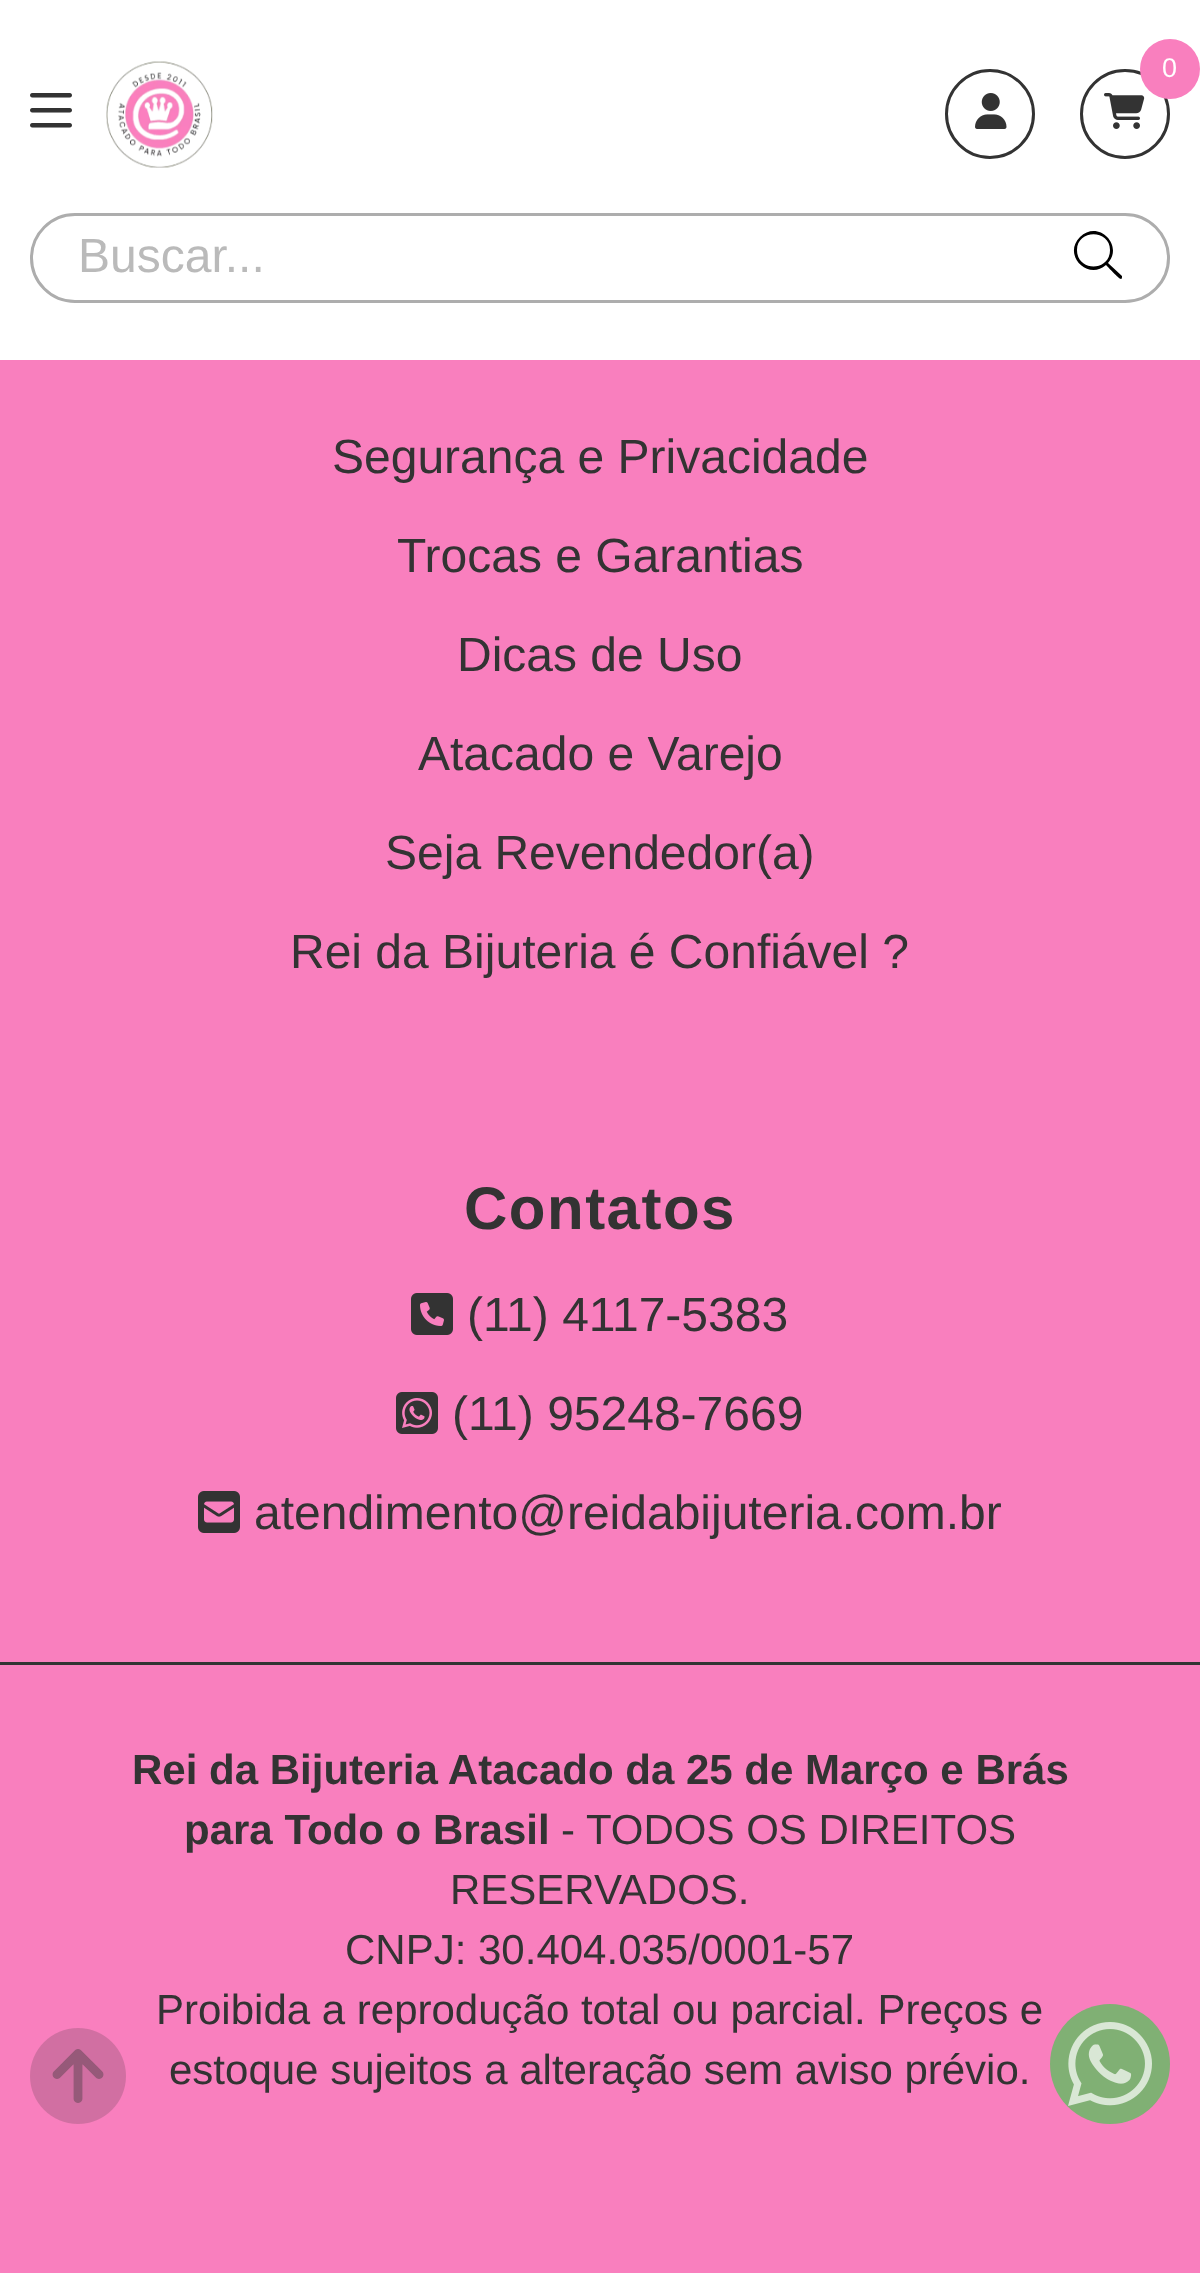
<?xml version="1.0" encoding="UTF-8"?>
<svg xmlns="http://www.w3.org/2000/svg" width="1200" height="2273">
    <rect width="100%" height="100%" fill="#F97FBE"/>
    <rect x="0" y="0" width="1200" height="360" fill="#FFFFFF"/>
    <image x="30" y="93" width="42" height="35" href="img_01.png"/>
    <image x="106" y="61" width="107" height="107" href="img_02.png"/>
    <circle cx="990" cy="114" r="43.5" fill="none" stroke="#333333" stroke-width="3"/>
    <image x="975" y="93" width="32" height="36" href="img_03.png"/>
    <circle cx="1125" cy="114" r="43.5" fill="none" stroke="#333333" stroke-width="3"/>
    <image x="1104" y="93" width="41" height="36" href="img_04.png"/>
    <circle cx="1170" cy="69" r="30" fill="#F97FBE"/>
    <text x="1162" y="77" font-family="Liberation Sans" font-size="27" fill="#FFFFFF">0</text>
    <rect x="31.5" y="214.5" width="1137" height="87" rx="43.5" fill="none" stroke="#ADADAD" stroke-width="3"/>
    <text x="78" y="272" font-family="Liberation Sans" font-size="48" fill="#BABABA">Buscar...</text>
    <path d="M 1110 250 C 1110 229 1077 229 1077 250 C 1077 272 1110 272 1110 250 Z M 1106 265 C 1088 281 1062 255 1080 237 C 1098 219 1124 245 1108 263 L 1122 276 C 1122 277 1122 279 1121 279 C 1119 279 1108 267 1106 265 Z" fill="#000000"/>
    <image x="30" y="2028" width="96" height="96" href="img_05.png"/>
    <text x="332" y="473" font-family="Liberation Sans" font-size="48" fill="#333333">Segurança e Privacidade</text>
    <text x="397" y="572" font-family="Liberation Sans" font-size="48" fill="#333333">Trocas e Garantias</text>
    <text x="457" y="671" font-family="Liberation Sans" font-size="48" fill="#333333">Dicas de Uso</text>
    <text x="418" y="770" font-family="Liberation Sans" font-size="48" fill="#333333">Atacado e Varejo</text>
    <text x="385" y="869" font-family="Liberation Sans" font-size="48" fill="#333333">Seja Revendedor(a)</text>
    <text x="290" y="968" font-family="Liberation Sans" font-size="48" fill="#333333">Rei da Bijuteria é Confiável ?</text>
    <text x="464" y="1229" font-family="Liberation Sans" font-size="60" font-weight="700" letter-spacing="1.5" fill="#333333">Contatos</text>
    <image x="411" y="1293" width="42" height="42" href="img_06.png"/>
    <text x="467" y="1331" font-family="Liberation Sans" font-size="48" fill="#333333">(11) 4117-5383</text>
    <image x="396" y="1392" width="42" height="42" href="img_07.png"/>
    <text x="452" y="1430" font-family="Liberation Sans" font-size="48" fill="#333333">(11) 95248-7669</text>
    <image x="198" y="1491" width="42" height="42" href="img_08.png"/>
    <text x="254" y="1529" font-family="Liberation Sans" font-size="48" fill="#333333">atendimento@reidabijuteria.com.br</text>
    <rect x="0" y="1662" width="1200" height="3" fill="#333333"/>
    <text x="132" y="1784" font-family="Liberation Sans" font-size="42" font-weight="700" fill="#333333">Rei da Bijuteria Atacado da 25 de Março e Brás</text>
    <text x="184" y="1844" font-family="Liberation Sans" font-size="42" font-weight="700" fill="#333333">para Todo o Brasil</text>
    <text x="561" y="1844" font-family="Liberation Sans" font-size="42" fill="#333333">- TODOS OS DIREITOS</text>
    <text x="450" y="1904" font-family="Liberation Sans" font-size="42" fill="#333333">RESERVADOS.</text>
    <text x="345" y="1964" font-family="Liberation Sans" font-size="42" fill="#333333">CNPJ: 30.404.035/0001-57</text>
    <text x="156" y="2024" font-family="Liberation Sans" font-size="42" fill="#333333">Proibida a reprodução total ou parcial. Preços e</text>
    <text x="169" y="2084" font-family="Liberation Sans" font-size="42" fill="#333333">estoque sujeitos a alteração sem aviso prévio.</text>
    <circle cx="1110" cy="2064" r="60" fill="#80B074"/>
    <image x="1068" y="2022" width="84" height="84" href="img_09.png"/>
</svg>
